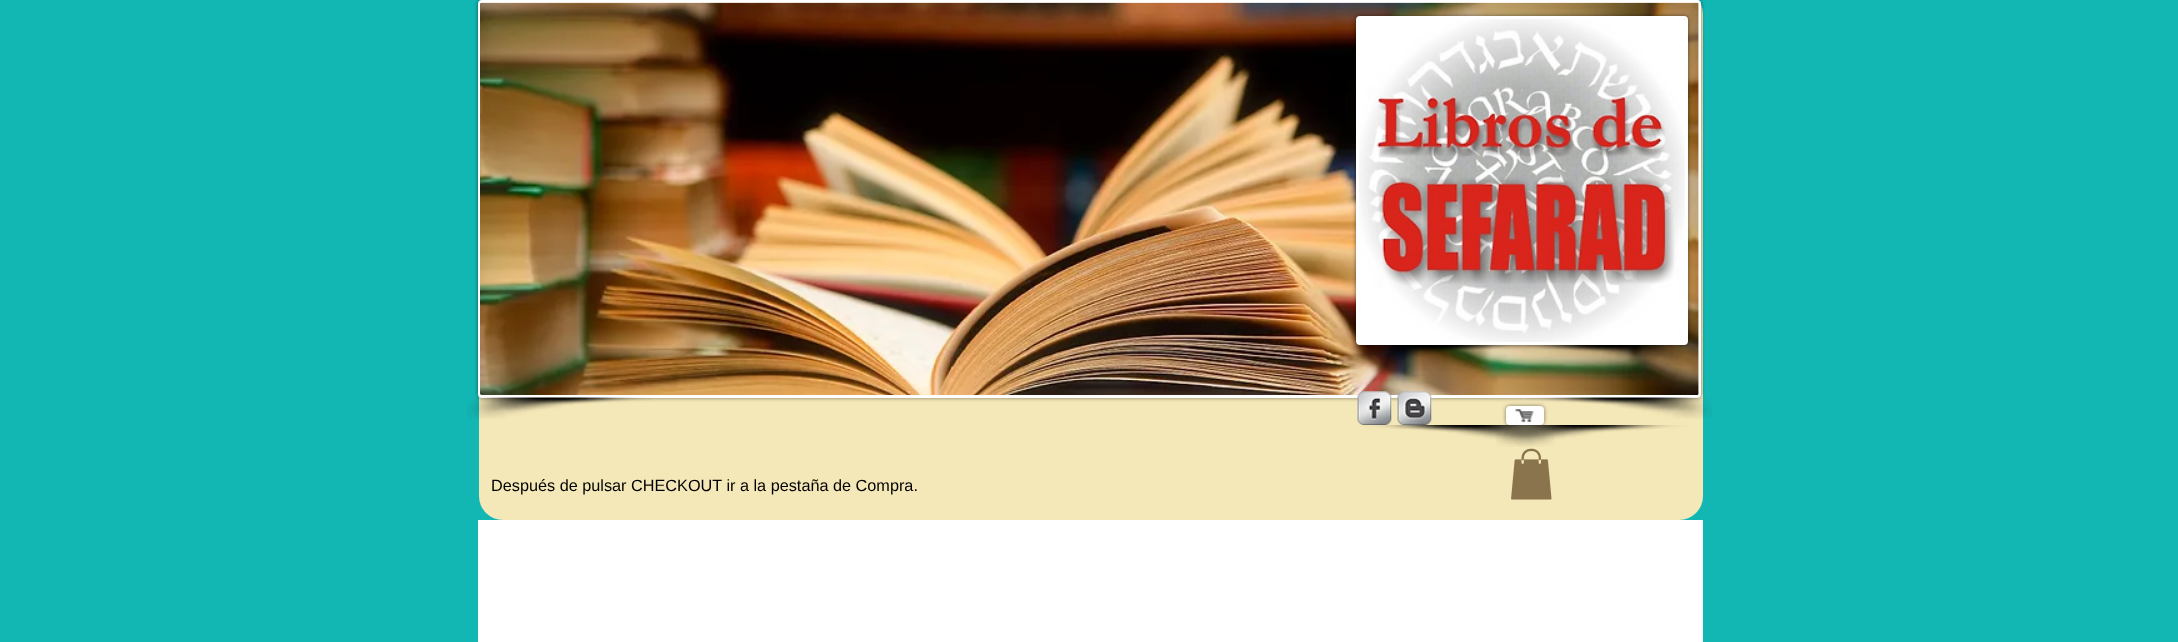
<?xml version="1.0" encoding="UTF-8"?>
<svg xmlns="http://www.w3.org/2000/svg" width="2178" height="642">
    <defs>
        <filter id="blur1" x="-50%" y="-200%" width="200%" height="500%"><feGaussianBlur stdDeviation="2"/></filter>
    </defs>
    <rect width="100%" height="100%" fill="#12B7B3"/>
    <rect x="479" y="-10" width="1224" height="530" rx="24" fill="#F5E8B8"/>
    <rect x="478" y="0" width="1223" height="398" rx="4" fill="#000000" fill-opacity="0.5" filter="url(#blur1)"/>
    <rect x="479.5" y="1.5" width="1220" height="395" rx="2.5" fill="none" stroke="#FFFFFF" stroke-width="3"/>
    <image x="480" y="2" width="1219" height="393" href="img_01.png"/>
    <image x="467" y="397" width="185" height="22" href="img_02.png"/>
    <image x="1526" y="397" width="186" height="22" href="img_03.png"/>
    <rect x="1356" y="16" width="332" height="329" rx="4" fill="#000000" fill-opacity="0.5" filter="url(#blur1)"/>
    <rect x="1357.5" y="17.5" width="329" height="326" rx="2.5" fill="none" stroke="#FFFFFF" stroke-width="3"/>
    <image x="1359" y="19" width="326" height="323" href="img_04.png"/>
    <image x="1346" y="345" width="185" height="22" href="img_05.png"/>
    <image x="1513" y="345" width="185" height="21" href="img_06.png"/>
    <image x="1357" y="391" width="35" height="34" href="img_07.png"/>
    <image x="1397" y="391" width="35" height="34" href="img_08.png"/>
    <rect x="1506" y="406" width="38" height="19" rx="4" fill="#000000" fill-opacity="0.5" filter="url(#blur1)"/>
    <rect x="1507.5" y="407.5" width="35" height="16" rx="2.5" fill="#FFFFFF" stroke="#FFFFFF" stroke-width="3"/>
    <image x="1515" y="409" width="19" height="14" href="img_09.png"/>
    <image x="1496" y="425" width="191" height="22" href="img_11.png"/>
    <image x="1363" y="425" width="191" height="22" href="img_10.png"/>
    <text x="491" y="491" font-family="Liberation Sans" font-size="16.25" fill="#000000">Después de pulsar CHECKOUT ir a la pestaña de Compra.</text>
    <image x="1511" y="448" width="41" height="52" href="img_12.png"/>
    <rect x="478" y="520" width="1225" height="122" fill="#FFFFFF"/>
</svg>
